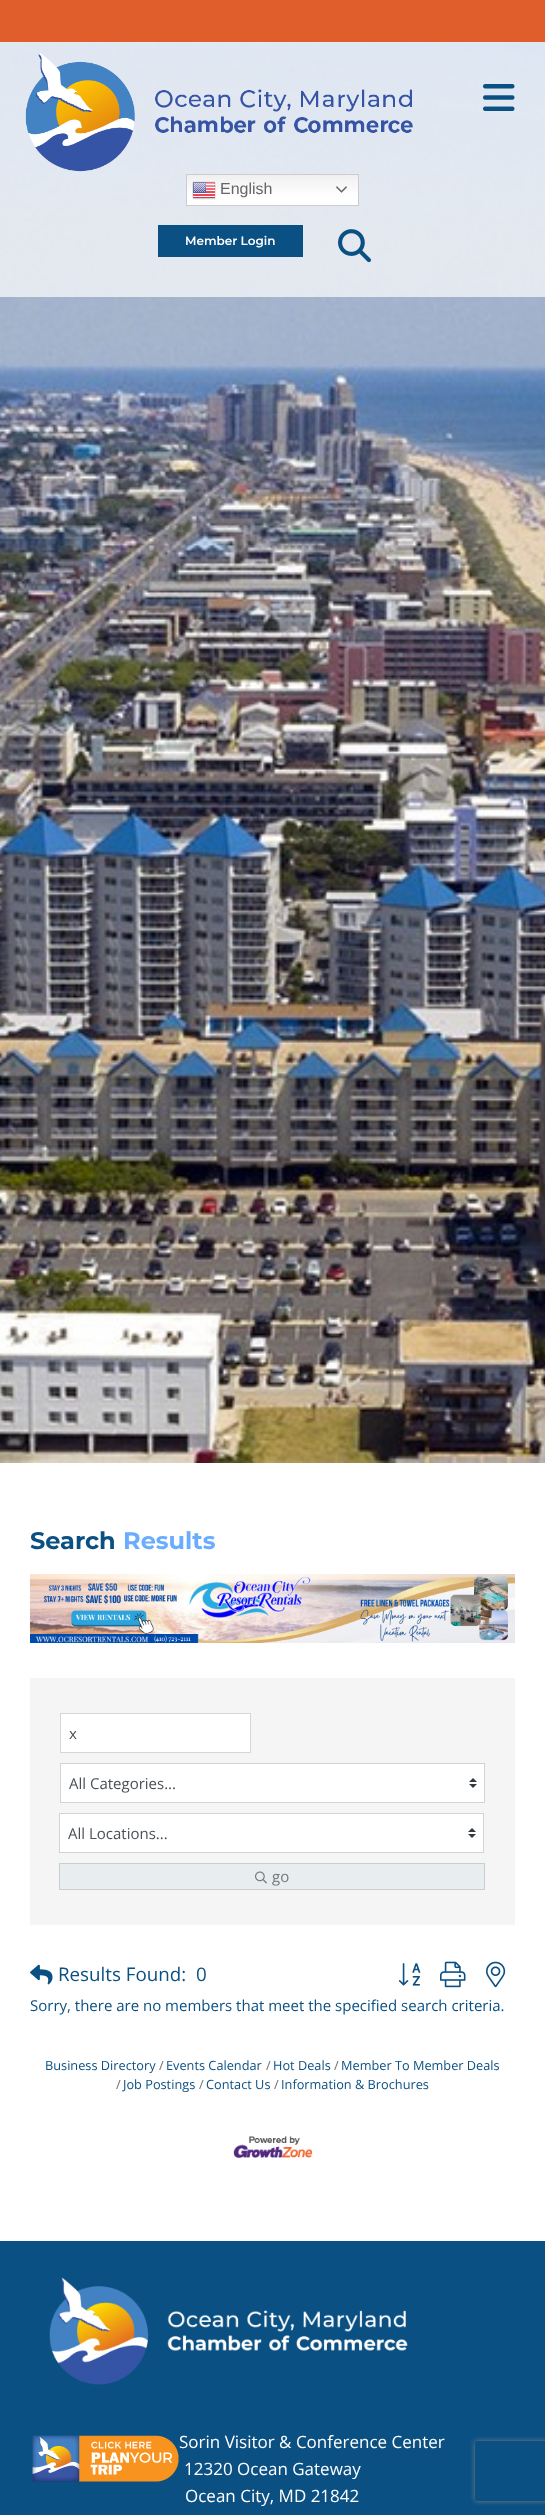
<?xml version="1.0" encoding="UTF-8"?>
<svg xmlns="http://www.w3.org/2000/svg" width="545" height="2515">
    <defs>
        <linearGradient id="g1" gradientUnits="userSpaceOnUse" x1="273" y1="174" x2="273" y2="206"><stop offset="0" stop-color="#EFEFEF"/><stop offset="0.7" stop-color="#FFFFFF"/></linearGradient>
        <clipPath id="clip1"><path d="M 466 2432 H 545 V 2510 H 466 Z M 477 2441 H 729 C 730 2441 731 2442 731 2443 V 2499 C 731 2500 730 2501 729 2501 H 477 C 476 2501 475 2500 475 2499 V 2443 C 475 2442 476 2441 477 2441 Z" clip-rule="evenodd"/></clipPath>
        <filter id="blur1" x="-50%" y="-200%" width="200%" height="500%"><feGaussianBlur stdDeviation="2.5"/></filter>
    </defs>
    <rect width="100%" height="100%" fill="#FFFFFF"/>
    <image x="0" y="42" width="545" height="1421" href="img_01.png"/>
    <rect x="0" y="0" width="545" height="42" fill="#E05E2B"/>
    <rect x="0" y="42" width="545" height="255" fill="#FFFFFF" fill-opacity="0.7"/>
    <image x="483" y="84" width="32" height="27" href="img_02.png"/>
    <image x="25" y="53" width="388" height="119" href="img_03.png"/>
    <rect x="187" y="175" width="171" height="30" fill="url(#g1)"/>
    <rect x="186.5" y="174.5" width="172" height="31" fill="none" stroke="#CCCCCC"/>
    <image x="192" y="181" width="24" height="19" href="img_04.png"/>
    <text x="220" y="194" font-family="Liberation Sans" font-size="16" fill="#666666">English</text>
    <image x="336" y="186" width="11" height="7" href="img_05.png"/>
    <rect x="158" y="225" width="145" height="32" fill="#0B5083"/>
    <text x="185" y="245" font-family="Montserrat" font-size="12" font-weight="600" fill="#FFFFFF">Member Login</text>
    <image x="338" y="229" width="33" height="34" href="img_06.png"/>
    <text x="30" y="1549" font-family="Montserrat" font-size="24" font-weight="700" fill="#0B5083">Search</text>
    <text x="123" y="1549" font-family="Montserrat" font-size="24" font-weight="700" fill="#6AACFD">Results</text>
    <image x="30" y="1574" width="485" height="69" href="img_07.png"/>
    <rect x="30" y="1678" width="485" height="247" fill="#F5F5F5"/>
    <rect x="60.5" y="1713.5" width="190" height="39" fill="#FFFFFF" stroke="#D6D6D6"/>
    <text x="69" y="1739" font-family="Open Sans" font-size="15" fill="#495057">x</text>
    <rect x="61" y="1764" width="423" height="38" fill="#FFFFFF"/>
    <image x="469" y="1778" width="8" height="10" href="img_08.png"/>
    <rect x="60.5" y="1763.5" width="424" height="39" fill="none" stroke="#CED4DA"/>
    <text x="69" y="1789" font-family="Open Sans" font-size="15" fill="#495057">All Categories...</text>
    <rect x="60" y="1814" width="423" height="38" fill="#FFFFFF"/>
    <image x="468" y="1828" width="8" height="10" href="img_08.png"/>
    <rect x="59.5" y="1813.5" width="424" height="39" fill="none" stroke="#CED4DA"/>
    <text x="68" y="1839" font-family="Open Sans" font-size="15" fill="#495057">All Locations...</text>
    <rect x="59.5" y="1863.5" width="425" height="26" fill="#E8EDF0" stroke="#CBCFD2"/>
    <image x="255" y="1871" width="12" height="13" href="img_09.png"/>
    <text x="272" y="1882" font-family="Open Sans" font-size="15" fill="#777777">go</text>
    <image x="30" y="1964" width="23" height="21" href="img_10.png"/>
    <text x="58" y="1981" font-family="Open Sans" font-size="18.75" fill="#0B5083">Results Found:</text>
    <text x="196" y="1981" font-family="Open Sans" font-size="18.75" fill="#0B5083">0</text>
    <image x="398" y="1963" width="23" height="23" href="img_11.png"/>
    <image x="440" y="1961" width="26" height="27" href="img_12.png"/>
    <image x="486" y="1961" width="20" height="27" href="img_13.png"/>
    <text x="30" y="2011" font-family="Open Sans" font-size="15" fill="#0B5083">Sorry, there are no members that meet the specified search criteria.</text>
    <text x="45" y="2070" font-family="Open Sans" font-size="12.75" fill="#0B5083">Business Directory</text>
    <text x="159" y="2070" font-family="Open Sans" font-size="12.75" fill="#6C757D">/</text>
    <text x="166" y="2070" font-family="Open Sans" font-size="12.75" fill="#0B5083">Events Calendar</text>
    <text x="266" y="2070" font-family="Open Sans" font-size="12.75" fill="#6C757D">/</text>
    <text x="273" y="2070" font-family="Open Sans" font-size="12.75" fill="#0B5083">Hot Deals</text>
    <text x="334" y="2070" font-family="Open Sans" font-size="12.75" fill="#6C757D">/</text>
    <text x="341" y="2070" font-family="Open Sans" font-size="12.75" fill="#0B5083">Member To Member Deals</text>
    <text x="116" y="2089" font-family="Open Sans" font-size="12.75" fill="#6C757D">/</text>
    <text x="123" y="2089" font-family="Open Sans" font-size="12.75" fill="#0B5083">Job Postings</text>
    <text x="199" y="2089" font-family="Open Sans" font-size="12.75" fill="#6C757D">/</text>
    <text x="206" y="2089" font-family="Open Sans" font-size="12.75" fill="#0B5083">Contact Us</text>
    <text x="274" y="2089" font-family="Open Sans" font-size="12.75" fill="#6C757D">/</text>
    <text x="281" y="2089" font-family="Open Sans" font-size="12.75" fill="#0B5083">Information &amp; Brochures</text>
    <image x="233" y="2136" width="80" height="22" href="img_14.png"/>
    <rect x="0" y="2241" width="545" height="274" fill="#0B5083"/>
    <image x="32" y="2435" width="147" height="47" href="img_15.png"/>
    <image x="49" y="2277" width="359" height="108" href="img_16.png"/>
    <text x="179" y="2448" font-family="Open Sans" font-size="17" fill="#FFFFFF">Sorin Visitor &amp; Conference Center</text>
    <text x="184" y="2475" font-family="Open Sans" font-size="17" fill="#FFFFFF">12320 Ocean Gateway</text>
    <text x="185" y="2502" font-family="Open Sans" font-size="17" fill="#FFFFFF">Ocean City, MD 21842</text>
    <g clip-path="url(#clip1)">
        <rect x="475" y="2441" width="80" height="60" rx="2" fill="#808080" filter="url(#blur1)"/>
    </g>
</svg>
